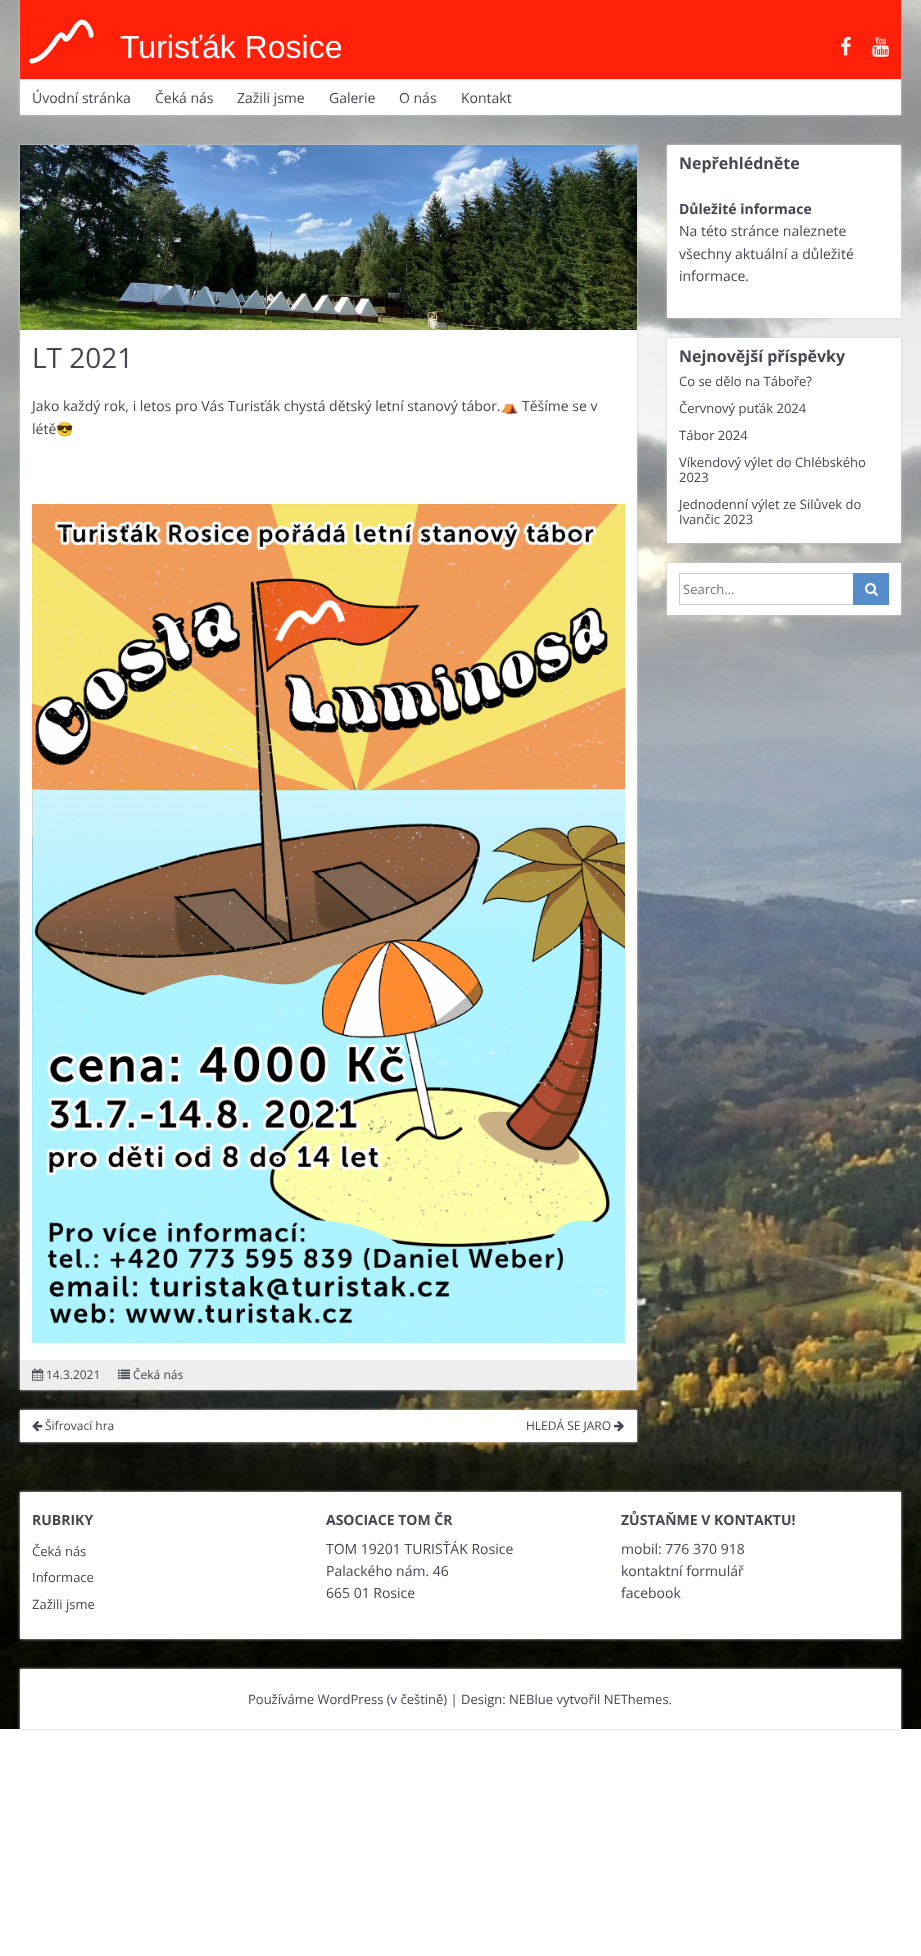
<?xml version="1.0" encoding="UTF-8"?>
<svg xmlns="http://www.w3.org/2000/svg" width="921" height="1956">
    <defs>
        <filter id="blur1" x="-50%" y="-200%" width="200%" height="500%"><feGaussianBlur stdDeviation="1.5"/></filter>
    </defs>
    <rect width="100%" height="100%" fill="#FFFFFF"/>
    <image x="0" y="0" width="921" height="1729" href="img_01.png"/>
    <rect x="20" y="0" width="881" height="115" fill="#CCCCCC" filter="url(#blur1)"/>
    <rect x="20" y="80" width="881" height="35" fill="#FFFFFF"/>
    <rect x="20" y="0" width="881" height="79" fill="#FF200A"/>
    <image x="28" y="18" width="67" height="47" href="img_02.png"/>
    <text x="120" y="58" font-family="Liberation Sans" font-size="32" fill="#FFFFFF">Turisťák Rosice</text>
    <image x="841" y="36" width="10" height="20" href="img_03.png"/>
    <image x="872" y="36" width="17" height="21" href="img_04.png"/>
    <rect x="20" y="79" width="881" height="1" fill="#EEEEEE"/>
    <text x="32" y="103" font-family="Open Sans" font-size="14" fill="#444650">Úvodní stránka</text>
    <text x="155" y="103" font-family="Open Sans" font-size="14" fill="#444650">Čeká nás</text>
    <text x="237" y="103" font-family="Open Sans" font-size="14" fill="#444650">Zažili jsme</text>
    <text x="329" y="103" font-family="Open Sans" font-size="14" fill="#444650">Galerie</text>
    <text x="399" y="103" font-family="Open Sans" font-size="14" fill="#444650">O nás</text>
    <text x="461" y="103" font-family="Open Sans" font-size="14" fill="#444650">Kontakt</text>
    <rect x="20" y="145" width="617" height="1245" fill="#CCCCCC" filter="url(#blur1)"/>
    <rect x="20" y="330" width="617" height="1030" fill="#FFFFFF"/>
    <image x="20" y="145" width="617" height="185" href="img_05.png"/>
    <text x="32" y="368" font-family="Open Sans" font-size="28" fill="#444650">LT 2021</text>
    <text x="32" y="411" font-family="Open Sans" font-size="14" fill="#444650">Jako každý rok, i letos pro Vás Turisťák chystá dětský letní stanový tábor.</text>
    <text x="501" y="411" font-family="Noto Color Emoji" font-size="14" fill="#444650">⛺</text>
    <text x="522" y="411" font-family="Open Sans" font-size="14" fill="#444650">Těšíme se v</text>
    <text x="32" y="434" font-family="Open Sans" font-size="14" fill="#444650">létě</text>
    <text x="56" y="434" font-family="Noto Color Emoji" font-size="14" fill="#444650">😎</text>
    <image x="32" y="504" width="593" height="839" href="img_06.png"/>
    <rect x="20" y="1360" width="617" height="30" fill="#EEEEEE"/>
    <image x="32" y="1368" width="12" height="13" href="img_07.png"/>
    <text x="46" y="1379" font-family="Open Sans" font-size="12" fill="#444650">14.3.2021</text>
    <image x="118" y="1369" width="12" height="10" href="img_08.png"/>
    <text x="133" y="1379" font-family="Open Sans" font-size="12" fill="#444650">Čeká nás</text>
    <rect x="20" y="1410" width="617" height="32" fill="#CCCCCC" filter="url(#blur1)"/>
    <rect x="20" y="1410" width="617" height="32" fill="#FFFFFF"/>
    <image x="32" y="1421" width="11" height="11" href="img_09.png"/>
    <text x="45" y="1430" font-family="Open Sans" font-size="12" fill="#444650">Šifrovací hra</text>
    <text x="526" y="1430" font-family="Open Sans" font-size="12" fill="#444650">HLEDÁ SE JARO</text>
    <image x="614" y="1421" width="10" height="11" href="img_10.png"/>
    <rect x="667" y="145" width="234" height="173" fill="#CCCCCC" filter="url(#blur1)"/>
    <rect x="667" y="145" width="234" height="173" fill="#FFFFFF"/>
    <text x="679" y="169" font-family="Open Sans" font-size="16" font-weight="700" fill="#444650">Nepřehlédněte</text>
    <text x="679" y="214" font-family="Open Sans" font-size="14" font-weight="700" fill="#444650">Důležité informace</text>
    <text font-family="Open Sans" font-size="14" fill="#444650">
        <tspan x="679" y="236">Na této stránce naleznete</tspan>
        <tspan x="679" y="259">všechny aktuální a důležité</tspan>
        <tspan x="679" y="281">informace.</tspan>
    </text>
    <rect x="667" y="338" width="234" height="205" fill="#CCCCCC" filter="url(#blur1)"/>
    <rect x="667" y="338" width="234" height="205" fill="#FFFFFF"/>
    <text x="679" y="362" font-family="Open Sans" font-size="16" font-weight="700" fill="#444650">Nejnovější příspěvky</text>
    <text x="679" y="386" font-family="Open Sans" font-size="13" fill="#444650">Co se dělo na Táboře?</text>
    <text x="679" y="413" font-family="Open Sans" font-size="13" fill="#444650">Červnový puťák 2024</text>
    <text x="679" y="440" font-family="Open Sans" font-size="13" fill="#444650">Tábor 2024</text>
    <text font-family="Open Sans" font-size="13" fill="#444650">
        <tspan x="679" y="467">Víkendový výlet do Chlébského</tspan>
        <tspan x="679" y="482">2023</tspan>
    </text>
    <text font-family="Open Sans" font-size="13" fill="#444650">
        <tspan x="679" y="509">Jednodenní výlet ze Silůvek do</tspan>
        <tspan x="679" y="524">Ivančic 2023</tspan>
    </text>
    <rect x="667" y="563" width="234" height="52" fill="#CCCCCC" filter="url(#blur1)"/>
    <rect x="667" y="563" width="234" height="52" fill="#FFFFFF"/>
    <rect x="679.5" y="573.5" width="209" height="31" fill="none" stroke="#CCCCCC"/>
    <text x="683" y="594" font-family="Open Sans" font-size="13" fill="#757575">Search…</text>
    <rect x="853" y="573" width="36" height="32" fill="#578CCA"/>
    <image x="865" y="583" width="13" height="13" href="img_11.png"/>
    <rect x="20" y="1492" width="881" height="147" fill="#CCCCCC" filter="url(#blur1)"/>
    <rect x="20" y="1492" width="881" height="147" fill="#FFFFFF"/>
    <text x="32" y="1525" font-family="Open Sans" font-size="14" font-weight="700" fill="#444650">RUBRIKY</text>
    <text x="32" y="1556" font-family="Open Sans" font-size="13" fill="#444650">Čeká nás</text>
    <text x="32" y="1582" font-family="Open Sans" font-size="13" fill="#444650">Informace</text>
    <text x="32" y="1609" font-family="Open Sans" font-size="13" fill="#444650">Zažili jsme</text>
    <text x="326" y="1525" font-family="Open Sans" font-size="14" font-weight="700" fill="#444650">ASOCIACE TOM ČR</text>
    <text font-family="Open Sans" font-size="14" fill="#444650">
        <tspan x="326" y="1554">TOM 19201 TURISŤÁK Rosice</tspan>
        <tspan x="326" y="1576">Palackého nám. 46</tspan>
        <tspan x="326" y="1598">665 01 Rosice</tspan>
    </text>
    <text x="621" y="1525" font-family="Open Sans" font-size="14" font-weight="700" fill="#444650">ZŮSTAŇME V KONTAKTU!</text>
    <text font-family="Open Sans" font-size="14" fill="#444650">
        <tspan x="621" y="1554">mobil: 776 370 918</tspan>
        <tspan x="621" y="1576">kontaktní formulář</tspan>
        <tspan x="621" y="1598">facebook</tspan>
    </text>
    <rect x="20" y="1669" width="881" height="60" fill="#CCCCCC" filter="url(#blur1)"/>
    <rect x="20" y="1669" width="881" height="60" fill="#FFFFFF"/>
    <text x="248" y="1704" font-family="Open Sans" font-size="13" fill="#444650">Používáme WordPress (v češtině) | Design: NEBlue vytvořil NEThemes.</text>
</svg>
